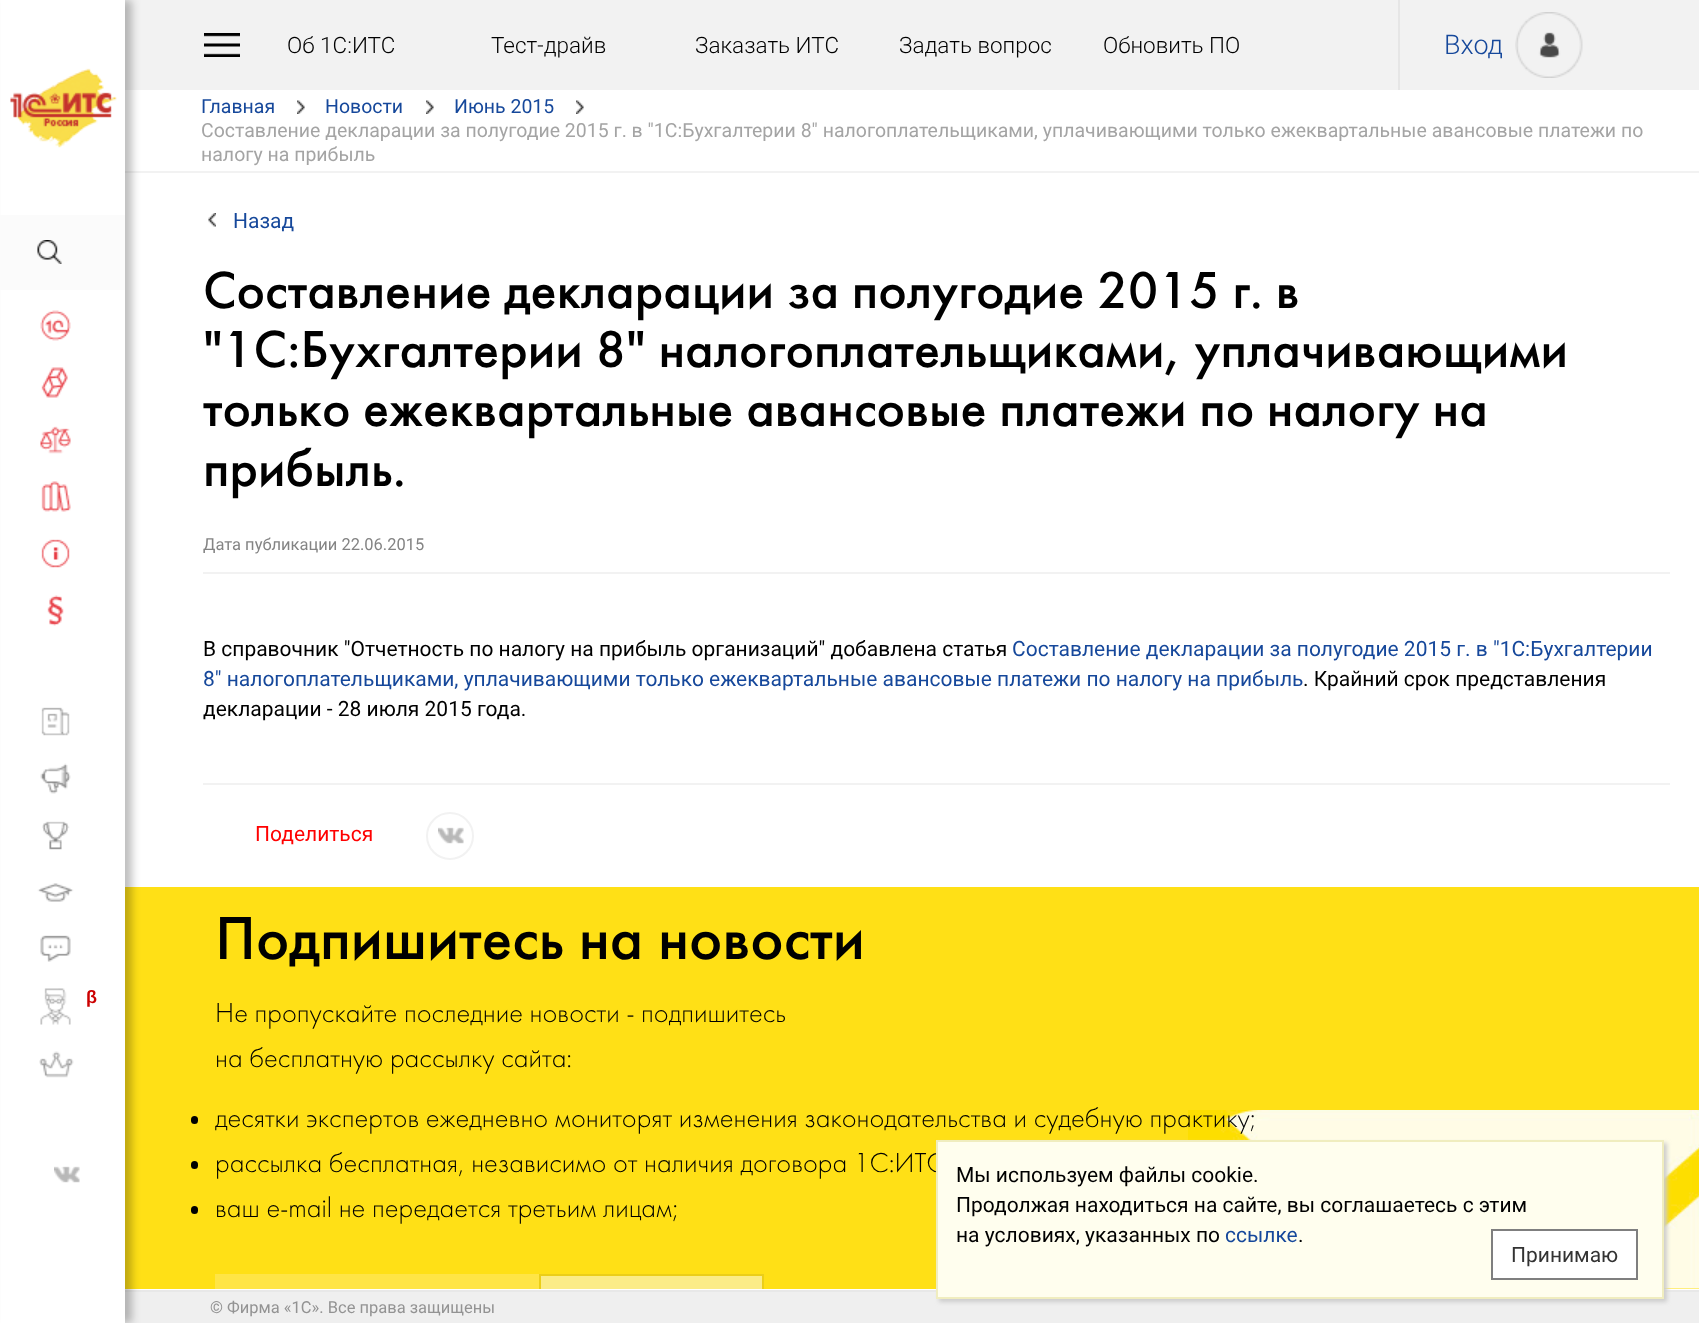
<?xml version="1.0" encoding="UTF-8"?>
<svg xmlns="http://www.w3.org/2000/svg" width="1699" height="1323">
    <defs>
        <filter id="blur1" x="-50%" y="-200%" width="200%" height="500%"><feGaussianBlur stdDeviation="4"/></filter>
        <clipPath id="clip1"><rect x="125" y="173" width="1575" height="1116"/></clipPath>
        <filter id="blur2" x="-50%" y="-200%" width="200%" height="500%"><feGaussianBlur stdDeviation="2"/></filter>
    </defs>
    <rect width="100%" height="100%" fill="#FFFFFF"/>
    <rect x="125" y="0" width="1574" height="90" fill="#F2F2F2"/>
    <image x="204" y="33" width="36" height="24" href="img_01.png"/>
    <text x="287" y="53" font-family="Roboto" font-size="22.5" font-weight="300" fill="#000000">Об 1С:ИТС</text>
    <text x="491" y="53" font-family="Roboto" font-size="22.5" font-weight="300" fill="#000000">Тест-драйв</text>
    <text x="695" y="53" font-family="Roboto" font-size="22.5" font-weight="300" fill="#000000">Заказать ИТС</text>
    <text x="899" y="53" font-family="Roboto" font-size="22.5" font-weight="300" fill="#000000">Задать вопрос</text>
    <text x="1103" y="53" font-family="Roboto" font-size="22.5" font-weight="300" fill="#000000">Обновить ПО</text>
    <rect x="1398" y="0" width="2" height="90" fill="#E6E6E6"/>
    <text x="1444" y="54" font-family="Roboto" font-size="27" font-weight="300" fill="#16489B">Вход</text>
    <image x="1515" y="12" width="68" height="66" href="img_02.png"/>
    <rect x="123" y="171" width="1576" height="2" fill="#F2F2F2"/>
    <text x="201" y="113" font-family="Roboto" font-size="19.5" fill="#16489B">Главная</text>
    <image x="297" y="100" width="8" height="14" href="img_03.png"/>
    <text x="325" y="113" font-family="Roboto" font-size="19.5" fill="#16489B">Новости</text>
    <image x="426" y="100" width="8" height="14" href="img_03.png"/>
    <text x="454" y="113" font-family="Roboto" font-size="19.5" fill="#16489B">Июнь 2015</text>
    <image x="576" y="100" width="8" height="14" href="img_03.png"/>
    <text font-family="Roboto" font-size="19.5" fill="#A4A4A4">
        <tspan x="201" y="137">Составление декларации за полугодие 2015 г. в "1С:Бухгалтерии 8" налогоплательщиками, уплачивающими только ежеквартальные авансовые платежи по</tspan>
        <tspan x="201" y="161">налогу на прибыль</tspan>
    </text>
    <rect x="125" y="887" width="1574" height="402" fill="#FFE016"/>
    <rect x="125" y="1292" width="1574" height="31" fill="#EFEFEF"/>
    <rect x="123" y="1290" width="1576" height="2" fill="#E8E8E8"/>
    <rect x="8" y="0" width="124" height="1323" fill="#000000" fill-opacity="0.25" filter="url(#blur1)"/>
    <rect x="1" y="0" width="124" height="1323" fill="#FFFFFF"/>
    <image x="10" y="68" width="107" height="80" href="img_04.png"/>
    <rect x="0" y="215" width="125" height="75" fill="#FBFBFB"/>
    <image x="37" y="240" width="25" height="24" href="img_05.png"/>
    <image x="40" y="310" width="31" height="31" href="img_06.png"/>
    <image x="41" y="367" width="27" height="31" href="img_07.png"/>
    <image x="40" y="426" width="31" height="28" href="img_08.png"/>
    <image x="41" y="481" width="30" height="31" href="img_09.png"/>
    <image x="41" y="539" width="29" height="29" href="img_10.png"/>
    <image x="47" y="595" width="17" height="31" href="img_11.png"/>
    <image x="41" y="707" width="29" height="29" href="img_12.png"/>
    <image x="40" y="763" width="31" height="31" href="img_13.png"/>
    <image x="42" y="821" width="28" height="29" href="img_14.png"/>
    <image x="37" y="883" width="37" height="19" href="img_15.png"/>
    <image x="40" y="935" width="31" height="27" href="img_16.png"/>
    <image x="40" y="988" width="31" height="37" href="img_17.png"/>
    <text x="86" y="1003" font-family="Liberation Sans" font-size="18" font-weight="700" fill="#CC0000">β</text>
    <image x="39" y="1051" width="35" height="27" href="img_18.png"/>
    <image x="54" y="1166" width="26" height="17" href="img_19.png"/>
    <image x="208" y="213" width="8" height="14" href="img_20.png"/>
    <text x="233" y="228" font-family="Roboto" font-size="21" fill="#16489B">Назад</text>
    <text font-family="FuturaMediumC" font-size="54" font-weight="500" fill="#000000">
        <tspan x="203" y="308">Составление декларации за полугодие 2015 г. в</tspan>
        <tspan x="203" y="367">"1С:Бухгалтерии 8" налогоплательщиками, уплачивающими</tspan>
        <tspan x="203" y="426">только ежеквартальные авансовые платежи по налогу на</tspan>
        <tspan x="203" y="486">прибыль.</tspan>
    </text>
    <rect x="203" y="572" width="1467" height="2" fill="#F2F2F2"/>
    <text x="203" y="550" font-family="Roboto" font-size="16.5" fill="#848484">Дата публикации 22.06.2015</text>
    <text x="203" y="656" font-family="Roboto" font-size="21" fill="#000000">В справочник "Отчетность по налогу на прибыль организаций" добавлена статья</text>
    <text x="1012" y="656" font-family="Roboto" font-size="21" fill="#16489B">Составление декларации за полугодие 2015 г. в "1С:Бухгалтерии</text>
    <text x="203" y="686" font-family="Roboto" font-size="21" fill="#16489B">8" налогоплательщиками, уплачивающими только ежеквартальные авансовые платежи по налогу на прибыль</text>
    <text x="1303" y="686" font-family="Roboto" font-size="21" fill="#000000">. Крайний срок представления</text>
    <text x="203" y="716" font-family="Roboto" font-size="21" fill="#000000">декларации - 28 июля 2015 года.</text>
    <rect x="203" y="783" width="1467" height="2" fill="#F2F2F2"/>
    <text x="255" y="841" font-family="Roboto" font-size="21" fill="#FF0101">Поделиться</text>
    <image x="438" y="827" width="26" height="17" href="img_21.png"/>
    <circle cx="450" cy="836" r="23" fill="none" stroke="#F2F2F2" stroke-width="2"/>
    <image x="1188" y="1110" width="511" height="179" href="img_22.png"/>
    <text x="215" y="959" font-family="FuturaMediumC" font-size="63" font-weight="500" fill="#000000">Подпишитесь на новости</text>
    <text font-family="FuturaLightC" font-size="28.5" font-weight="300" fill="#000000">
        <tspan x="215" y="1022">Не пропускайте последние новости - подпишитесь</tspan>
        <tspan x="215" y="1067">на бесплатную рассылку сайта:</tspan>
    </text>
    <rect x="191" y="1116" width="7" height="8" rx="3.5" fill="#000000"/>
    <text x="215" y="1127" font-family="FuturaLightC" font-size="28.5" font-weight="300" fill="#000000">десятки экспертов ежедневно мониторят изменения законодательства и судебную практику;</text>
    <rect x="191" y="1161" width="7" height="8" rx="3.5" fill="#000000"/>
    <text x="215" y="1172" font-family="FuturaLightC" font-size="28.5" font-weight="300" fill="#000000">рассылка бесплатная, независимо от наличия договора 1С:ИТС</text>
    <rect x="191" y="1206" width="7" height="8" rx="3.5" fill="#000000"/>
    <text x="215" y="1217" font-family="FuturaLightC" font-size="28.5" font-weight="300" fill="#000000">ваш e-mail не передается третьим лицам;</text>
    <rect x="215" y="1274" width="324" height="15" fill="#FFE546"/>
    <rect x="541" y="1276" width="221" height="13" fill="#FBEC87"/>
    <g clip-path="url(#clip1)">
        <rect x="540" y="1275" width="223" height="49" fill="none" stroke="#EBCE18" stroke-width="2"/>
    </g>
    <rect x="939" y="1143" width="728" height="159" fill="#CCCCCC" filter="url(#blur2)"/>
    <rect x="937" y="1141" width="726" height="157" fill="#FFFEEE" stroke="#F0EDBF" stroke-width="2"/>
    <text font-family="Roboto" font-size="21" fill="#000000">
        <tspan x="956" y="1182">Мы используем файлы cookie.</tspan>
        <tspan x="956" y="1212">Продолжая находиться на сайте, вы соглашаетесь с этим</tspan>
        <tspan x="956" y="1242">на условиях, указанных по</tspan>
    </text>
    <text x="1225" y="1242" font-family="Roboto" font-size="21" fill="#16489B">ссылке</text>
    <text x="1298" y="1242" font-family="Roboto" font-size="21" fill="#000000">.</text>
    <rect x="1492" y="1230" width="145" height="49" fill="#FFFFFF" stroke="#7F7F7F" stroke-width="2"/>
    <text x="1511" y="1262" font-family="Roboto" font-size="21" fill="#333333">Принимаю</text>
    <text x="210" y="1313" font-family="Roboto" font-size="16.5" fill="#939393">© Фирма «1С». Все права защищены</text>
</svg>
